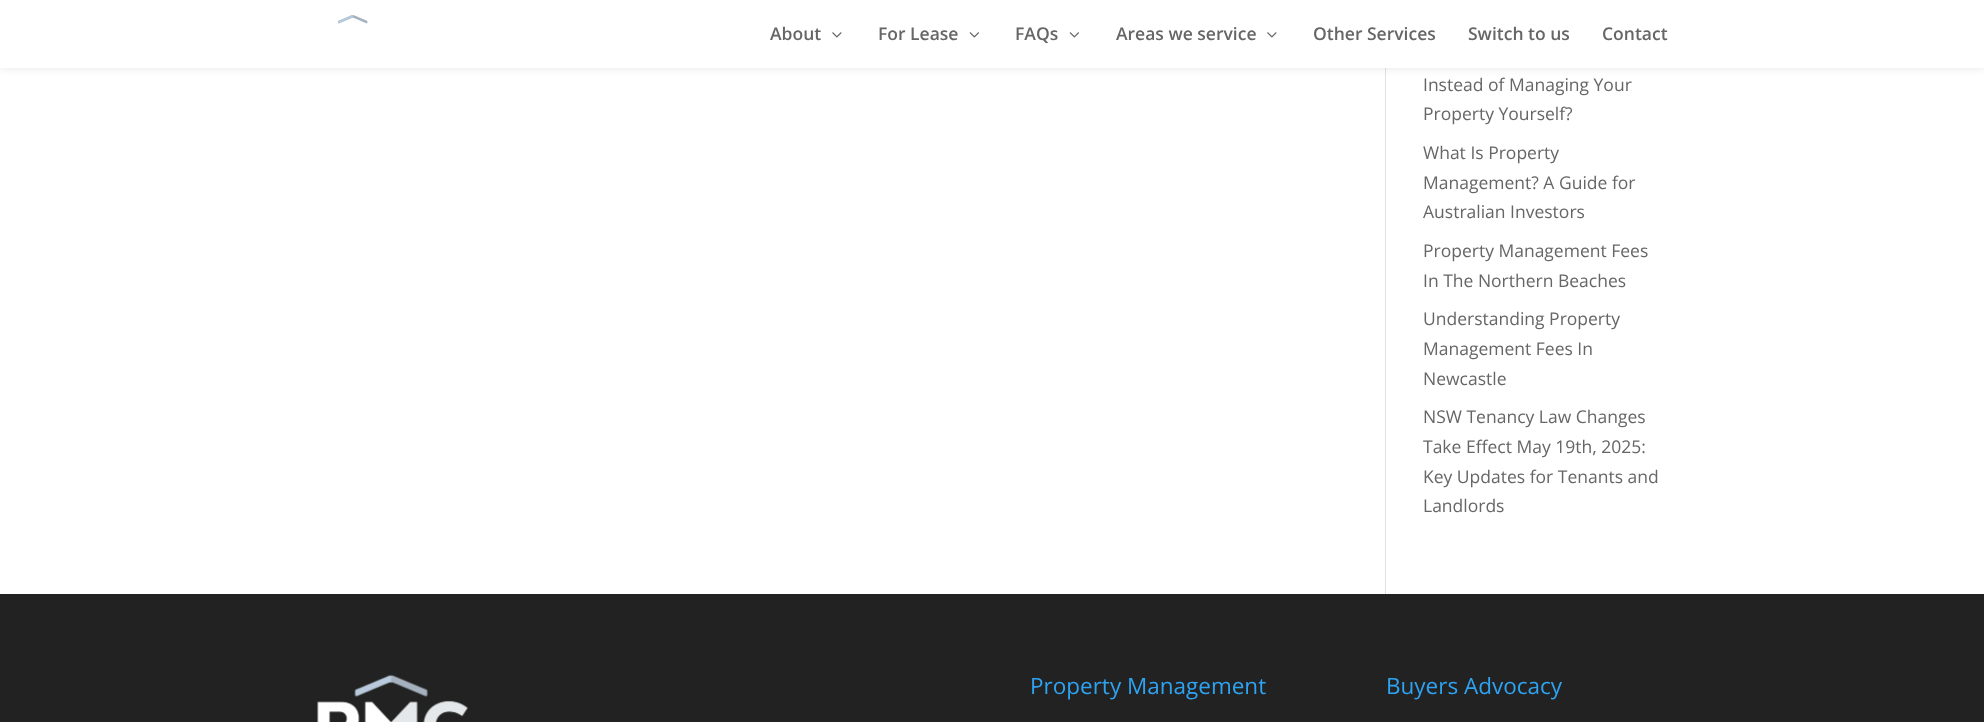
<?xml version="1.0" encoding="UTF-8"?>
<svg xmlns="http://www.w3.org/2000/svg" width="1984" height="722">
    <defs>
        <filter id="blur1" x="-50%" y="-200%" width="200%" height="500%"><feGaussianBlur stdDeviation="4.5"/></filter>
    </defs>
    <rect width="100%" height="100%" fill="#FFFFFF"/>
    <rect x="1385" y="68" width="1" height="526" fill="#E2E2E2"/>
    <rect x="0" y="0" width="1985" height="68" fill="#000000" fill-opacity="0.1" filter="url(#blur1)"/>
    <rect x="0" y="0" width="1984" height="68" fill="#FFFFFF"/>
    <image x="338" y="15" width="30" height="9" href="img_01.png"/>
    <text x="770" y="40" font-family="Open Sans" font-size="17.5" font-weight="600" fill="#666666">About</text>
    <image x="832" y="32" width="10" height="6" href="img_02.png"/>
    <text x="878" y="40" font-family="Open Sans" font-size="17.5" font-weight="600" fill="#666666">For Lease</text>
    <image x="969" y="32" width="10" height="6" href="img_03.png"/>
    <text x="1015" y="40" font-family="Open Sans" font-size="17.5" font-weight="600" fill="#666666">FAQs</text>
    <image x="1069" y="32" width="10" height="6" href="img_03.png"/>
    <text x="1116" y="40" font-family="Open Sans" font-size="17.5" font-weight="600" fill="#666666">Areas we service</text>
    <image x="1267" y="32" width="10" height="6" href="img_02.png"/>
    <text x="1313" y="40" font-family="Open Sans" font-size="17.5" font-weight="600" fill="#666666">Other Services</text>
    <text x="1468" y="40" font-family="Open Sans" font-size="17.5" font-weight="600" fill="#666666">Switch to us</text>
    <text x="1602" y="40" font-family="Open Sans" font-size="17.5" font-weight="600" fill="#666666">Contact</text>
    <text font-family="Open Sans" font-size="17.5" fill="#666666">
        <tspan x="1423" y="91">Instead of Managing Your</tspan>
        <tspan x="1423" y="120">Property Yourself?</tspan>
    </text>
    <text font-family="Open Sans" font-size="17.5" fill="#666666">
        <tspan x="1423" y="159">What Is Property</tspan>
        <tspan x="1423" y="189">Management? A Guide for</tspan>
        <tspan x="1423" y="218">Australian Investors</tspan>
    </text>
    <text font-family="Open Sans" font-size="17.5" fill="#666666">
        <tspan x="1423" y="257">Property Management Fees</tspan>
        <tspan x="1423" y="287">In The Northern Beaches</tspan>
    </text>
    <text font-family="Open Sans" font-size="17.5" fill="#666666">
        <tspan x="1423" y="325">Understanding Property</tspan>
        <tspan x="1423" y="355">Management Fees In</tspan>
        <tspan x="1423" y="385">Newcastle</tspan>
    </text>
    <text font-family="Open Sans" font-size="17.5" fill="#666666">
        <tspan x="1423" y="423">NSW Tenancy Law Changes</tspan>
        <tspan x="1423" y="453">Take Effect May 19th, 2025:</tspan>
        <tspan x="1423" y="483">Key Updates for Tenants and</tspan>
        <tspan x="1423" y="512">Landlords</tspan>
    </text>
    <rect x="0" y="594" width="1984" height="128" fill="#222222"/>
    <image x="317" y="674" width="151" height="48" href="img_04.png"/>
    <text x="1030" y="694" font-family="Open Sans" font-size="22.5" fill="#2EA3F2">Property Management</text>
    <text x="1386" y="694" font-family="Open Sans" font-size="22.5" fill="#2EA3F2">Buyers Advocacy</text>
</svg>
